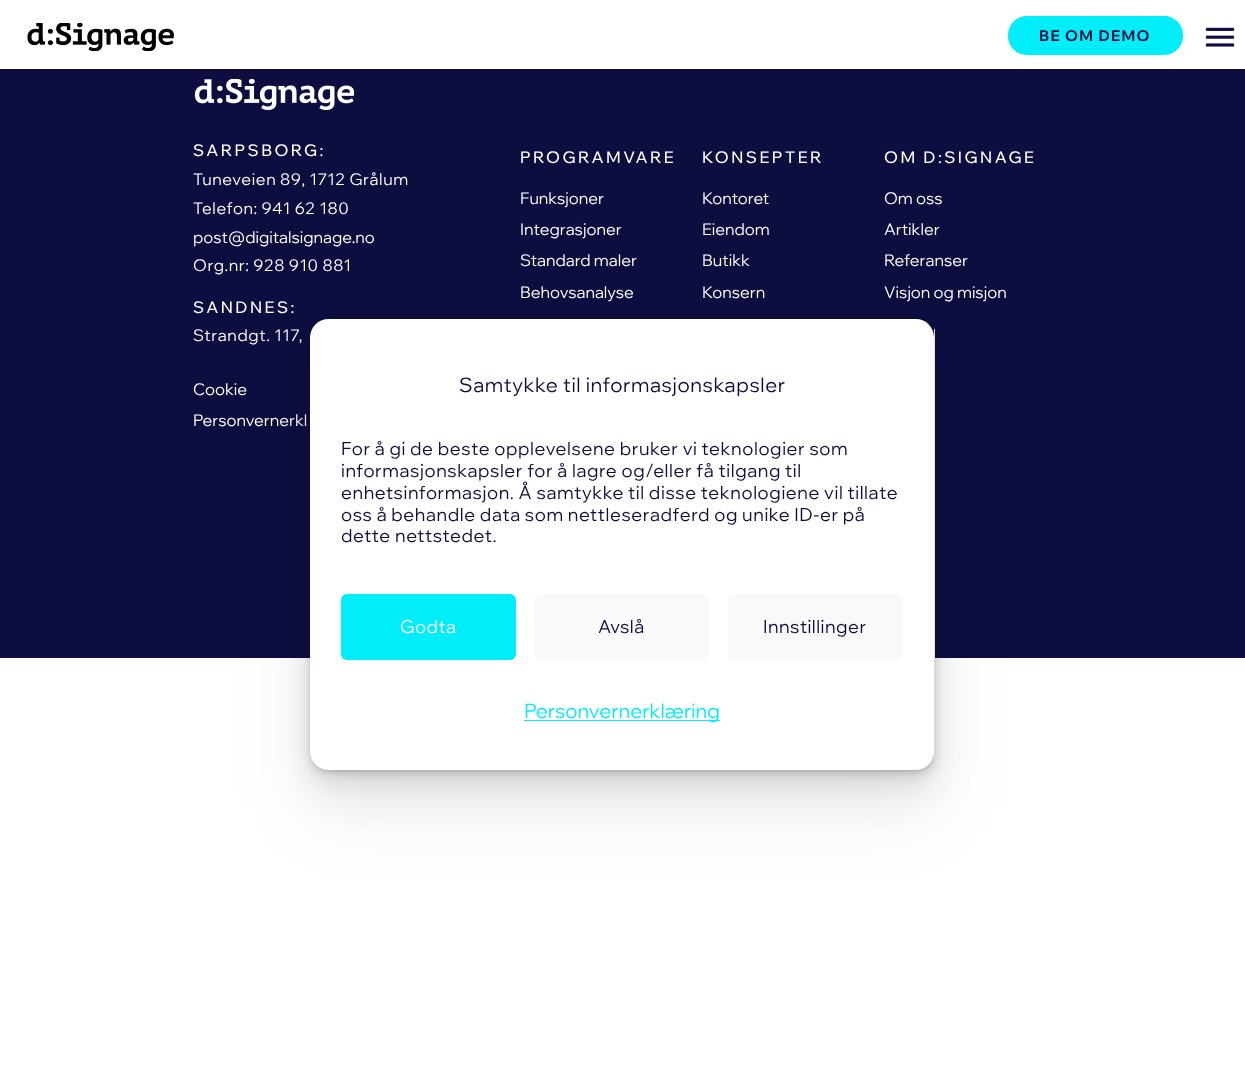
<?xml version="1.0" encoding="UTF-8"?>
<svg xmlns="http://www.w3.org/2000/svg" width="1245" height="1088">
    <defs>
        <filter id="blur1" x="-50%" y="-200%" width="200%" height="500%"><feGaussianBlur stdDeviation="40"/></filter>
        <filter id="blur2" x="-50%" y="-200%" width="200%" height="500%"><feGaussianBlur stdDeviation="20"/></filter>
        <filter id="blur3" x="-50%" y="-200%" width="200%" height="500%"><feGaussianBlur stdDeviation="10"/></filter>
        <filter id="blur4" x="-50%" y="-200%" width="200%" height="500%"><feGaussianBlur stdDeviation="5"/></filter>
        <filter id="blur5" x="-50%" y="-200%" width="200%" height="500%"><feGaussianBlur stdDeviation="2.5"/></filter>
        <filter id="blur6" x="-50%" y="-200%" width="200%" height="500%"><feGaussianBlur stdDeviation="1"/></filter>
    </defs>
    <rect width="100%" height="100%" fill="#FFFFFF"/>
    <image x="27" y="23" width="147" height="28" href="img_01.png"/>
    <rect x="1008" y="16" width="175" height="39" rx="19" fill="#00EDF9"/>
    <text x="1039" y="41" font-family="Wix Madefor Display" font-size="15" font-weight="700" letter-spacing="1.25" fill="#0D0D40">BE OM DEMO</text>
    <image x="1205" y="27" width="30" height="20" href="img_02.png"/>
    <rect x="0" y="69" width="1245" height="589" fill="#0D0D40"/>
    <image x="194" y="79" width="161" height="31" href="img_03.png"/>
    <text x="193" y="156" font-family="Wix Madefor Display" font-size="16.25" font-weight="500" letter-spacing="2.5" fill="#FFFFFF">SARPSBORG:</text>
    <text font-family="Wix Madefor Display" font-size="16.25" letter-spacing="0.6" fill="#FFFFFF">
        <tspan x="193" y="185">Tuneveien 89, 1712 Grålum</tspan>
        <tspan x="193" y="214">Telefon: 941 62 180</tspan>
    </text>
    <text x="193" y="243" font-family="Wix Madefor Display" font-size="16.25" fill="#FFFFFF">post@digitalsignage.no</text>
    <text x="193" y="271" font-family="Wix Madefor Display" font-size="16.25" letter-spacing="0.6" fill="#FFFFFF">Org.nr: 928 910 881</text>
    <text x="193" y="313" font-family="Wix Madefor Display" font-size="16.25" font-weight="500" letter-spacing="2.5" fill="#FFFFFF">SANDNES:</text>
    <text x="193" y="341" font-family="Wix Madefor Display" font-size="16.25" letter-spacing="0.6" fill="#FFFFFF">Strandgt. 117,</text>
    <text font-family="Wix Madefor Display" font-size="16.25" fill="#FFFFFF">
        <tspan x="193" y="395">Cookie</tspan>
        <tspan x="193" y="426">Personvernerkl</tspan>
    </text>
    <text x="520" y="163" font-family="Wix Madefor Display" font-size="16.25" font-weight="500" letter-spacing="2.5" fill="#FFFFFF">PROGRAMVARE</text>
    <text font-family="Wix Madefor Display" font-size="16.25" fill="#FFFFFF">
        <tspan x="520" y="204">Funksjoner</tspan>
        <tspan x="520" y="235">Integrasjoner</tspan>
        <tspan x="520" y="266">Standard maler</tspan>
        <tspan x="520" y="298">Behovsanalyse</tspan>
    </text>
    <text x="702" y="163" font-family="Wix Madefor Display" font-size="16.25" font-weight="500" letter-spacing="2.5" fill="#FFFFFF">KONSEPTER</text>
    <text font-family="Wix Madefor Display" font-size="16.25" fill="#FFFFFF">
        <tspan x="702" y="204">Kontoret</tspan>
        <tspan x="702" y="235">Eiendom</tspan>
        <tspan x="702" y="266">Butikk</tspan>
        <tspan x="702" y="298">Konsern</tspan>
    </text>
    <text x="884" y="163" font-family="Wix Madefor Display" font-size="16.25" font-weight="500" letter-spacing="2.5" fill="#FFFFFF">OM D:SIGNAGE</text>
    <text font-family="Wix Madefor Display" font-size="16.25" fill="#FFFFFF">
        <tspan x="884" y="204">Om oss</tspan>
        <tspan x="884" y="235">Artikler</tspan>
        <tspan x="884" y="266">Referanser</tspan>
        <tspan x="884" y="298">Visjon og misjon</tspan>
    </text>
    <rect x="310" y="359" width="625" height="451" rx="19" fill="#000000" fill-opacity="0.07" filter="url(#blur1)"/>
    <rect x="310" y="339" width="625" height="451" rx="19" fill="#000000" fill-opacity="0.07" filter="url(#blur2)"/>
    <rect x="310" y="329" width="625" height="451" rx="19" fill="#000000" fill-opacity="0.07" filter="url(#blur3)"/>
    <rect x="310" y="324" width="625" height="451" rx="19" fill="#000000" fill-opacity="0.07" filter="url(#blur4)"/>
    <rect x="310" y="321" width="625" height="452" rx="19" fill="#000000" fill-opacity="0.07" filter="url(#blur5)"/>
    <rect x="310" y="320" width="625" height="451" rx="19" fill="#000000" fill-opacity="0.07" filter="url(#blur6)"/>
    <path d="M 329 319 H 916 C 926 319 934 327 934 338 V 751 C 934 762 926 770 916 770 H 329 C 318 770 310 762 310 751 V 338 C 310 327 318 319 329 319 Z" fill="#FFFFFF"/>
    <rect x="934" y="329" width="1" height="432" fill="#E0E0E0"/>
    <text x="459" y="392" font-family="Wix Madefor Display" font-size="20" letter-spacing="0.6" fill="#0D0D40">Samtykke til informasjonskapsler</text>
    <text font-family="Wix Madefor Display" font-size="18.1" letter-spacing="0.6" fill="#0D0D40">
        <tspan x="341" y="455">For å gi de beste opplevelsene bruker vi teknologier som</tspan>
        <tspan x="341" y="477">informasjonskapsler for å lagre og/eller få tilgang til</tspan>
        <tspan x="341" y="499">enhetsinformasjon. Å samtykke til disse teknologiene vil tillate</tspan>
        <tspan x="341" y="521">oss å behandle data som nettleseradferd og unike ID-er på</tspan>
        <tspan x="341" y="542">dette nettstedet.</tspan>
    </text>
    <rect x="341" y="594" width="175" height="66" rx="6" fill="#00EDF9"/>
    <text x="400" y="633" font-family="Wix Madefor Display" font-size="18.1" letter-spacing="0.5" fill="#FFFFFF">Godta</text>
    <rect x="535" y="594" width="174" height="66" rx="6" fill="#F9F9F9"/>
    <text x="598" y="633" font-family="Wix Madefor Display" font-size="18.1" letter-spacing="0.5" fill="#0D0D40">Avslå</text>
    <rect x="728" y="594" width="175" height="66" rx="6" fill="#F9F9F9"/>
    <text x="763" y="633" font-family="Wix Madefor Display" font-size="18.1" letter-spacing="0.5" fill="#0D0D40">Innstillinger</text>
    <rect x="524" y="720" width="196" height="1" fill="#00EDF9"/>
    <text x="524" y="718" font-family="Wix Madefor Display" font-size="20" fill="#00EDF9">Personvernerklæring</text>
</svg>
